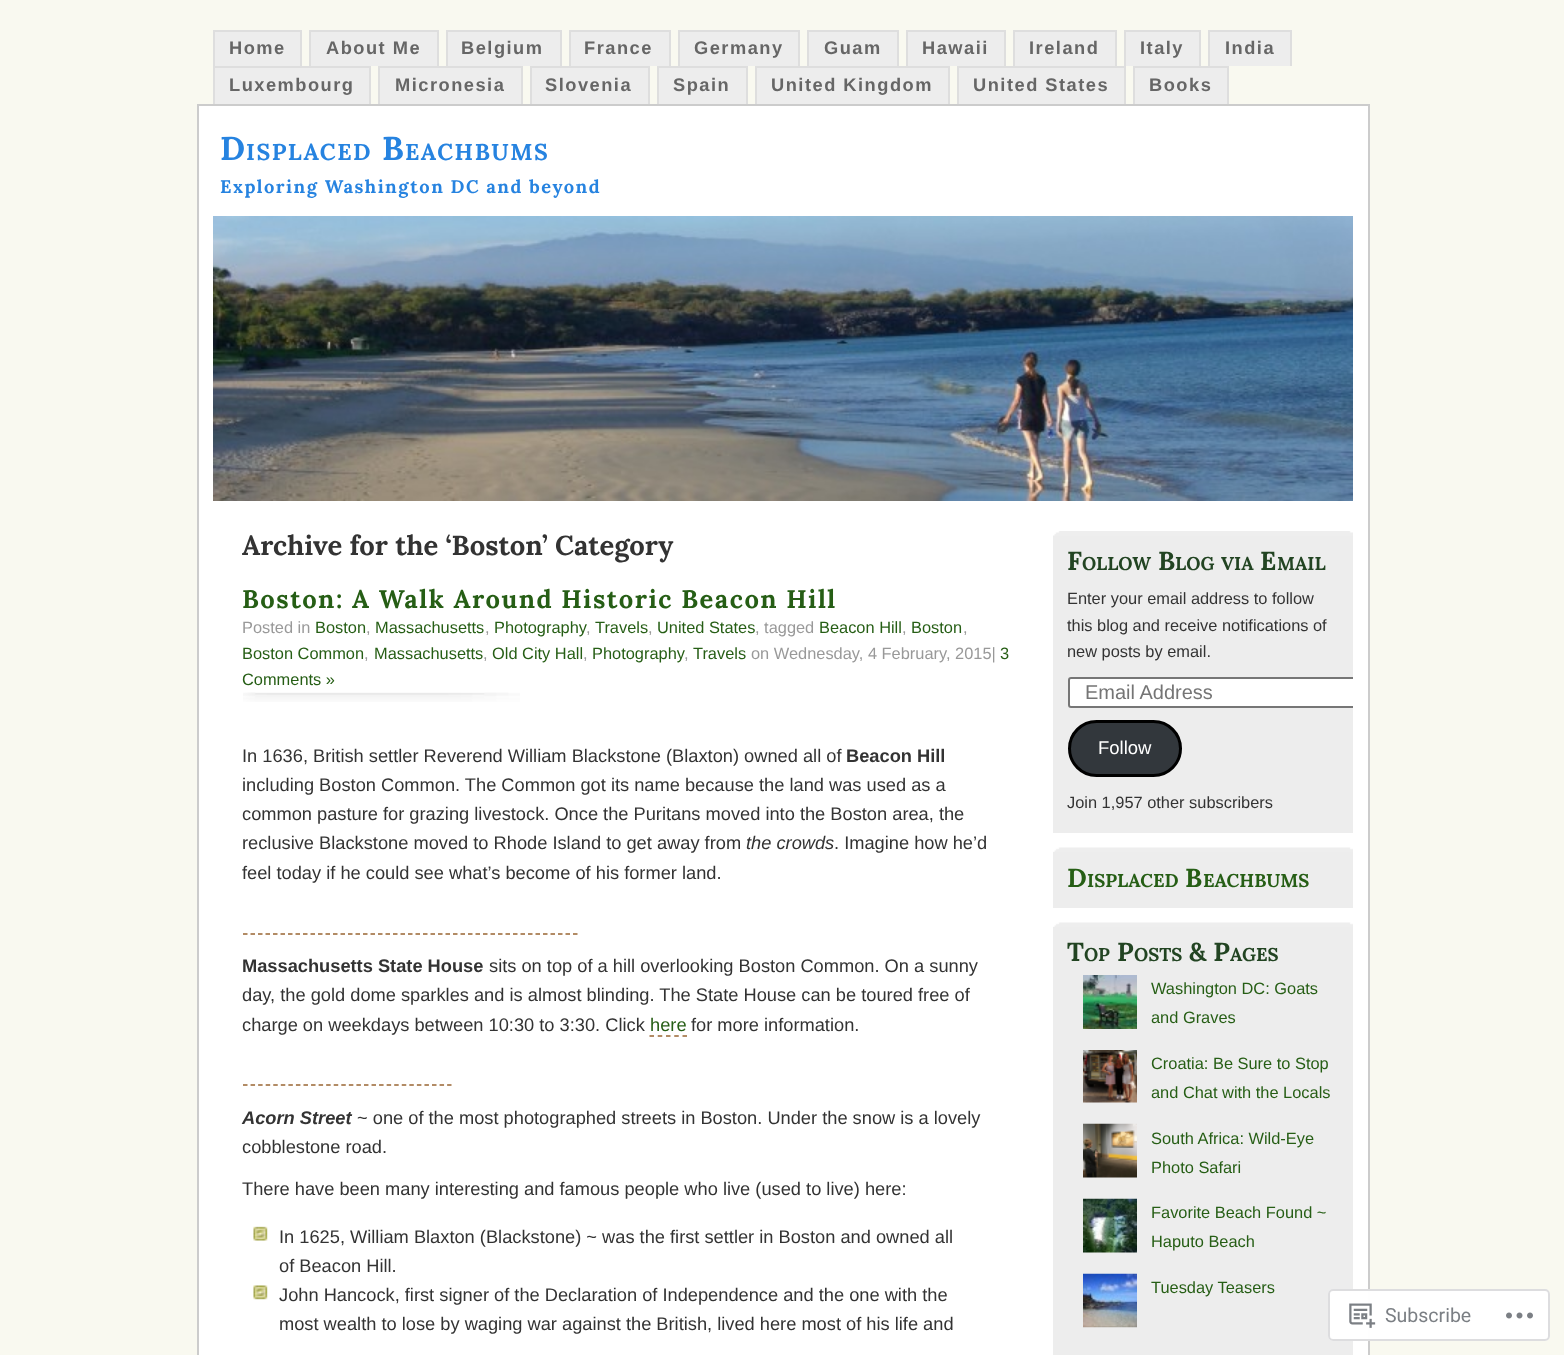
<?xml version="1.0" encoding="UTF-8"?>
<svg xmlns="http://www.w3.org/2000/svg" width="1564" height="1355">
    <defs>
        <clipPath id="clip1"><rect x="1053" y="531" width="300" height="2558"/></clipPath>
    </defs>
    <rect width="100%" height="100%" fill="#F9F9F0"/>
    <rect x="215" y="32" width="85" height="34" fill="#EDEDED"/>
    <rect x="213" y="30" width="89" height="2" fill="#DEDEDE"/>
    <rect x="300" y="30" width="2" height="36" fill="#DEDEDE"/>
    <rect x="213" y="30" width="2" height="36" fill="#DEDEDE"/>
    <text x="229" y="54" font-family="Liberation Sans" font-size="18.25" font-weight="700" letter-spacing="1.5" fill="#666666">Home</text>
    <rect x="311" y="32" width="126" height="34" fill="#EDEDED"/>
    <rect x="309" y="30" width="129" height="2" fill="#DEDEDE"/>
    <rect x="437" y="30" width="2" height="36" fill="#DEDEDE"/>
    <rect x="309" y="30" width="2" height="36" fill="#DEDEDE"/>
    <text x="326" y="54" font-family="Liberation Sans" font-size="18.25" font-weight="700" letter-spacing="1.5" fill="#666666">About Me</text>
    <rect x="448" y="32" width="112" height="34" fill="#EDEDED"/>
    <rect x="446" y="30" width="115" height="2" fill="#DEDEDE"/>
    <rect x="560" y="30" width="2" height="36" fill="#DEDEDE"/>
    <rect x="446" y="30" width="2" height="36" fill="#DEDEDE"/>
    <text x="461" y="54" font-family="Liberation Sans" font-size="18.25" font-weight="700" letter-spacing="1.5" fill="#666666">Belgium</text>
    <rect x="571" y="32" width="98" height="34" fill="#EDEDED"/>
    <rect x="569" y="30" width="102" height="2" fill="#DEDEDE"/>
    <rect x="669" y="30" width="2" height="36" fill="#DEDEDE"/>
    <rect x="569" y="30" width="2" height="36" fill="#DEDEDE"/>
    <text x="584" y="54" font-family="Liberation Sans" font-size="18.25" font-weight="700" letter-spacing="1.5" fill="#666666">France</text>
    <rect x="680" y="32" width="118" height="34" fill="#EDEDED"/>
    <rect x="678" y="30" width="122" height="2" fill="#DEDEDE"/>
    <rect x="798" y="30" width="2" height="36" fill="#DEDEDE"/>
    <rect x="678" y="30" width="2" height="36" fill="#DEDEDE"/>
    <text x="694" y="54" font-family="Liberation Sans" font-size="18.25" font-weight="700" letter-spacing="1.5" fill="#666666">Germany</text>
    <rect x="809" y="32" width="88" height="34" fill="#EDEDED"/>
    <rect x="807" y="30" width="92" height="2" fill="#DEDEDE"/>
    <rect x="897" y="30" width="2" height="36" fill="#DEDEDE"/>
    <rect x="807" y="30" width="2" height="36" fill="#DEDEDE"/>
    <text x="824" y="54" font-family="Liberation Sans" font-size="18.25" font-weight="700" letter-spacing="1.5" fill="#666666">Guam</text>
    <rect x="908" y="32" width="96" height="34" fill="#EDEDED"/>
    <rect x="906" y="30" width="99" height="2" fill="#DEDEDE"/>
    <rect x="1004" y="30" width="2" height="36" fill="#DEDEDE"/>
    <rect x="906" y="30" width="2" height="36" fill="#DEDEDE"/>
    <text x="922" y="54" font-family="Liberation Sans" font-size="18.25" font-weight="700" letter-spacing="1.5" fill="#666666">Hawaii</text>
    <rect x="1015" y="32" width="100" height="34" fill="#EDEDED"/>
    <rect x="1013" y="30" width="103" height="2" fill="#DEDEDE"/>
    <rect x="1115" y="30" width="2" height="36" fill="#DEDEDE"/>
    <rect x="1013" y="30" width="2" height="36" fill="#DEDEDE"/>
    <text x="1029" y="54" font-family="Liberation Sans" font-size="18.25" font-weight="700" letter-spacing="1.5" fill="#666666">Ireland</text>
    <rect x="1126" y="32" width="73" height="34" fill="#EDEDED"/>
    <rect x="1124" y="30" width="76" height="2" fill="#DEDEDE"/>
    <rect x="1199" y="30" width="2" height="36" fill="#DEDEDE"/>
    <rect x="1124" y="30" width="2" height="36" fill="#DEDEDE"/>
    <text x="1140" y="54" font-family="Liberation Sans" font-size="18.25" font-weight="700" letter-spacing="1.5" fill="#666666">Italy</text>
    <rect x="1210" y="32" width="80" height="34" fill="#EDEDED"/>
    <rect x="1208" y="30" width="84" height="2" fill="#DEDEDE"/>
    <rect x="1290" y="30" width="2" height="36" fill="#DEDEDE"/>
    <rect x="1208" y="30" width="2" height="36" fill="#DEDEDE"/>
    <text x="1225" y="54" font-family="Liberation Sans" font-size="18.25" font-weight="700" letter-spacing="1.5" fill="#666666">India</text>
    <rect x="215" y="68" width="154" height="36" fill="#EDEDED"/>
    <rect x="213" y="66" width="158" height="2" fill="#DEDEDE"/>
    <rect x="369" y="66" width="2" height="38" fill="#DEDEDE"/>
    <rect x="213" y="66" width="2" height="38" fill="#DEDEDE"/>
    <text x="229" y="91" font-family="Liberation Sans" font-size="18.25" font-weight="700" letter-spacing="1.5" fill="#666666">Luxembourg</text>
    <rect x="380" y="68" width="141" height="36" fill="#EDEDED"/>
    <rect x="378" y="66" width="144" height="2" fill="#DEDEDE"/>
    <rect x="521" y="66" width="2" height="38" fill="#DEDEDE"/>
    <rect x="378" y="66" width="2" height="38" fill="#DEDEDE"/>
    <text x="395" y="91" font-family="Liberation Sans" font-size="18.25" font-weight="700" letter-spacing="1.5" fill="#666666">Micronesia</text>
    <rect x="532" y="68" width="116" height="36" fill="#EDEDED"/>
    <rect x="530" y="66" width="120" height="2" fill="#DEDEDE"/>
    <rect x="648" y="66" width="2" height="38" fill="#DEDEDE"/>
    <rect x="530" y="66" width="2" height="38" fill="#DEDEDE"/>
    <text x="545" y="91" font-family="Liberation Sans" font-size="18.25" font-weight="700" letter-spacing="1.5" fill="#666666">Slovenia</text>
    <rect x="659" y="68" width="87" height="36" fill="#EDEDED"/>
    <rect x="657" y="66" width="90" height="2" fill="#DEDEDE"/>
    <rect x="746" y="66" width="2" height="38" fill="#DEDEDE"/>
    <rect x="657" y="66" width="2" height="38" fill="#DEDEDE"/>
    <text x="673" y="91" font-family="Liberation Sans" font-size="18.25" font-weight="700" letter-spacing="1.5" fill="#666666">Spain</text>
    <rect x="757" y="68" width="191" height="36" fill="#EDEDED"/>
    <rect x="755" y="66" width="195" height="2" fill="#DEDEDE"/>
    <rect x="948" y="66" width="2" height="38" fill="#DEDEDE"/>
    <rect x="755" y="66" width="2" height="38" fill="#DEDEDE"/>
    <text x="771" y="91" font-family="Liberation Sans" font-size="18.25" font-weight="700" letter-spacing="1.5" fill="#666666">United Kingdom</text>
    <rect x="959" y="68" width="165" height="36" fill="#EDEDED"/>
    <rect x="957" y="66" width="168" height="2" fill="#DEDEDE"/>
    <rect x="1124" y="66" width="2" height="38" fill="#DEDEDE"/>
    <rect x="957" y="66" width="2" height="38" fill="#DEDEDE"/>
    <text x="973" y="91" font-family="Liberation Sans" font-size="18.25" font-weight="700" letter-spacing="1.5" fill="#666666">United States</text>
    <rect x="1135" y="68" width="92" height="36" fill="#EDEDED"/>
    <rect x="1133" y="66" width="96" height="2" fill="#DEDEDE"/>
    <rect x="1227" y="66" width="2" height="38" fill="#DEDEDE"/>
    <rect x="1133" y="66" width="2" height="38" fill="#DEDEDE"/>
    <text x="1149" y="91" font-family="Liberation Sans" font-size="18.25" font-weight="700" letter-spacing="1.5" fill="#666666">Books</text>
    <rect x="198" y="105" width="1171" height="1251" fill="#FFFFFF" stroke="#CCCCCC" stroke-width="2"/>
    <text x="220" y="160" font-family="Lora" font-size="33" font-weight="700" letter-spacing="1.5" fill="#2683E0">D</text>
    <text x="246" y="160" font-family="Lora" font-size="23" font-weight="700" letter-spacing="1.5" fill="#2683E0">ISPLACED</text>
    <text x="382" y="160" font-family="Lora" font-size="33" font-weight="700" letter-spacing="1.5" fill="#2683E0">B</text>
    <text x="405" y="160" font-family="Lora" font-size="23" font-weight="700" letter-spacing="1.5" fill="#2683E0">EACHBUMS</text>
    <text x="220" y="193" font-family="Lora" font-size="18.25" font-weight="700" letter-spacing="1.5" fill="#2683E0">Exploring Washington DC and beyond</text>
    <image x="213" y="216" width="1140" height="285" href="img_01.png"/>
    <text x="242" y="555" font-family="Lora" font-size="27.4" font-weight="700" fill="#333333">Archive for the ‘Boston’ Category</text>
    <text x="242" y="608" font-family="Lora" font-size="25.5" font-weight="700" letter-spacing="1.5" fill="#265E15">Boston: A Walk Around Historic Beacon Hill</text>
    <image x="243" y="692" width="277" height="10" href="img_02.png"/>
    <text x="242" y="633" font-family="Liberation Sans" font-size="16.4" fill="#999999">Posted in</text>
    <text x="315" y="633" font-family="Liberation Sans" font-size="16.4" fill="#265E15">Boston</text>
    <text x="366" y="633" font-family="Liberation Sans" font-size="16.4" fill="#999999">,</text>
    <text x="375" y="633" font-family="Liberation Sans" font-size="16.4" fill="#265E15">Massachusetts</text>
    <text x="485" y="633" font-family="Liberation Sans" font-size="16.4" fill="#999999">,</text>
    <text x="494" y="633" font-family="Liberation Sans" font-size="16.4" fill="#265E15">Photography</text>
    <text x="595" y="633" font-family="Liberation Sans" font-size="16.4" fill="#265E15">Travels</text>
    <text x="657" y="633" font-family="Liberation Sans" font-size="16.4" fill="#265E15">United States</text>
    <text x="755" y="633" font-family="Liberation Sans" font-size="16.4" fill="#999999">, tagged</text>
    <text x="819" y="633" font-family="Liberation Sans" font-size="16.4" fill="#265E15">Beacon Hill</text>
    <text x="911" y="633" font-family="Liberation Sans" font-size="16.4" fill="#265E15">Boston</text>
    <text x="586" y="633" font-family="Liberation Sans" font-size="16.4" fill="#999999">,</text>
    <text x="648" y="633" font-family="Liberation Sans" font-size="16.4" fill="#999999">,</text>
    <text x="902" y="633" font-family="Liberation Sans" font-size="16.4" fill="#999999">,</text>
    <text x="963" y="633" font-family="Liberation Sans" font-size="16.4" fill="#999999">,</text>
    <text x="242" y="659" font-family="Liberation Sans" font-size="16.4" fill="#265E15">Boston Common</text>
    <text x="364" y="659" font-family="Liberation Sans" font-size="16.4" fill="#999999">,</text>
    <text x="374" y="659" font-family="Liberation Sans" font-size="16.4" fill="#265E15">Massachusetts</text>
    <text x="483" y="659" font-family="Liberation Sans" font-size="16.4" fill="#999999">,</text>
    <text x="492" y="659" font-family="Liberation Sans" font-size="16.4" fill="#265E15">Old City Hall</text>
    <text x="583" y="659" font-family="Liberation Sans" font-size="16.4" fill="#999999">,</text>
    <text x="592" y="659" font-family="Liberation Sans" font-size="16.4" fill="#265E15">Photography</text>
    <text x="684" y="659" font-family="Liberation Sans" font-size="16.4" fill="#999999">,</text>
    <text x="693" y="659" font-family="Liberation Sans" font-size="16.4" fill="#265E15">Travels</text>
    <text x="751" y="659" font-family="Liberation Sans" font-size="16.4" fill="#999999">on Wednesday, 4 February, 2015|</text>
    <text x="1000" y="659" font-family="Liberation Sans" font-size="16.4" fill="#265E15">3</text>
    <text x="242" y="685" font-family="Liberation Sans" font-size="16.4" fill="#265E15">Comments »</text>
    <text x="242" y="762" font-family="Liberation Sans" font-size="18.25" fill="#333333">In 1636, British settler Reverend William Blackstone (Blaxton) owned all of</text>
    <text x="846" y="762" font-family="Liberation Sans" font-size="18.25" font-weight="700" fill="#333333">Beacon Hill</text>
    <text font-family="Liberation Sans" font-size="18.25" fill="#333333">
        <tspan x="242" y="791">including Boston Common. The Common got its name because the land was used as a</tspan>
        <tspan x="242" y="820">common pasture for grazing livestock. Once the Puritans moved into the Boston area, the</tspan>
        <tspan x="242" y="849">reclusive Blackstone moved to Rhode Island to get away from</tspan>
    </text>
    <text x="746" y="849" font-family="Liberation Sans" font-size="18.25" font-style="italic" fill="#333333">the crowds</text>
    <text x="834" y="849" font-family="Liberation Sans" font-size="18.25" fill="#333333">. Imagine how he’d</text>
    <text x="242" y="879" font-family="Liberation Sans" font-size="18.25" fill="#333333">feel today if he could see what’s become of his former land.</text>
    <path d="M 243 934 H 577.5" fill="none" stroke="#996633" stroke-width="1.5" stroke-dasharray="4.5 3"/>
    <text x="242" y="972" font-family="Liberation Sans" font-size="18.25" font-weight="700" fill="#333333">Massachusetts State House</text>
    <text x="489" y="972" font-family="Liberation Sans" font-size="18.25" fill="#333333">sits on top of a hill overlooking Boston Common. On a sunny</text>
    <text font-family="Liberation Sans" font-size="18.25" fill="#333333">
        <tspan x="242" y="1001">day, the gold dome sparkles and is almost blinding. The State House can be toured free of</tspan>
        <tspan x="242" y="1031">charge on weekdays between 10:30 to 3:30. Click</tspan>
    </text>
    <text x="650" y="1031" font-family="Liberation Sans" font-size="18.25" fill="#265E15">here</text>
    <path d="M 649.5 1036 H 687" fill="none" stroke="#996633" stroke-width="1.5" stroke-dasharray="4.5 3.75"/>
    <text x="691" y="1031" font-family="Liberation Sans" font-size="18.25" fill="#333333">for more information.</text>
    <path d="M 243 1085 H 451.5" fill="none" stroke="#996633" stroke-width="1.5" stroke-dasharray="4.5 3.06"/>
    <text x="242" y="1124" font-family="Liberation Sans" font-size="18.25" font-weight="700" font-style="italic" fill="#333333">Acorn Street</text>
    <text x="357" y="1124" font-family="Liberation Sans" font-size="18.25" fill="#333333">~ one of the most photographed streets in Boston. Under the snow is a lovely</text>
    <text x="242" y="1153" font-family="Liberation Sans" font-size="18.25" fill="#333333">cobblestone road.</text>
    <text x="242" y="1195" font-family="Liberation Sans" font-size="18.25" fill="#333333">There have been many interesting and famous people who live (used to live) here:</text>
    <image x="253" y="1226" width="15" height="15" href="img_03.png"/>
    <text font-family="Liberation Sans" font-size="18.25" fill="#333333">
        <tspan x="279" y="1243">In 1625, William Blaxton (Blackstone) ~ was the first settler in Boston and owned all</tspan>
        <tspan x="279" y="1272">of Beacon Hill.</tspan>
    </text>
    <image x="253" y="1285" width="15" height="15" href="img_04.png"/>
    <text font-family="Liberation Sans" font-size="18.25" fill="#333333">
        <tspan x="279" y="1301">John Hancock, first signer of the Declaration of Independence and the one with the</tspan>
        <tspan x="279" y="1330">most wealth to lose by waging war against the British, lived here most of his life and</tspan>
    </text>
    <rect x="1053" y="536" width="300" height="297" fill="#EDEDED"/>
    <image x="1053" y="531" width="300" height="5" href="img_05.png"/>
    <text x="1067" y="570" font-family="Lora" font-size="26" font-weight="700" fill="#224422">F</text>
    <text x="1082" y="570" font-family="Lora" font-size="18.5" font-weight="700" fill="#224422">OLLOW</text>
    <text x="1158" y="570" font-family="Lora" font-size="26" font-weight="700" fill="#224422">B</text>
    <text x="1175" y="570" font-family="Lora" font-size="18.5" font-weight="700" fill="#224422">LOG</text>
    <text x="1221" y="570" font-family="Lora" font-size="18.5" font-weight="700" fill="#224422">VIA</text>
    <text x="1260" y="570" font-family="Lora" font-size="26" font-weight="700" fill="#224422">E</text>
    <text x="1277" y="570" font-family="Lora" font-size="18.5" font-weight="700" fill="#224422">MAIL</text>
    <text font-family="Liberation Sans" font-size="16.4" fill="#333333">
        <tspan x="1067" y="604">Enter your email address to follow</tspan>
        <tspan x="1067" y="631">this blog and receive notifications of</tspan>
        <tspan x="1067" y="657">new posts by email.</tspan>
    </text>
    <path d="M 1071 677 H 1353 V 708 H 1071 C 1069.5 708 1068 706.5 1068 705 V 680 C 1068 678.5 1069.5 677 1071 677 Z" fill="#FFFFFF"/>
    <g clip-path="url(#clip1)">
        <rect x="1069" y="678" width="291" height="29" rx="2" fill="none" stroke="#767676" stroke-width="2"/>
    </g>
    <text x="1085" y="699" font-family="Liberation Sans" font-size="20" fill="#757575">Email Address</text>
    <rect x="1069.5" y="721.5" width="111" height="54" rx="27" fill="#32373C" stroke="#000000" stroke-width="3"/>
    <text x="1098" y="754" font-family="Liberation Sans" font-size="18.5" fill="#FFFFFF">Follow</text>
    <text x="1067" y="808" font-family="Liberation Sans" font-size="16.4" fill="#333333">Join 1,957 other subscribers</text>
    <rect x="1053" y="852" width="300" height="56" fill="#EDEDED"/>
    <image x="1053" y="847" width="300" height="5" href="img_06.png"/>
    <text x="1067" y="887" font-family="Lora" font-size="26" font-weight="700" fill="#265E15">D</text>
    <text x="1087" y="887" font-family="Lora" font-size="18.5" font-weight="700" fill="#265E15">ISPLACED</text>
    <text x="1185" y="887" font-family="Lora" font-size="26" font-weight="700" fill="#265E15">B</text>
    <text x="1203" y="887" font-family="Lora" font-size="18.5" font-weight="700" fill="#265E15">EACHBUMS</text>
    <rect x="1053" y="927" width="300" height="428" fill="#EDEDED"/>
    <image x="1053" y="922" width="300" height="5" href="img_06.png"/>
    <text x="1067" y="961" font-family="Lora" font-size="26" font-weight="700" fill="#224422">T</text>
    <text x="1084" y="961" font-family="Lora" font-size="18.5" font-weight="700" fill="#224422">OP</text>
    <text x="1117" y="961" font-family="Lora" font-size="26" font-weight="700" fill="#224422">P</text>
    <text x="1134" y="961" font-family="Lora" font-size="18.5" font-weight="700" fill="#224422">OSTS</text>
    <text x="1189" y="961" font-family="Lora" font-size="26" font-weight="700" fill="#224422">&amp; P</text>
    <text x="1230" y="961" font-family="Lora" font-size="18.5" font-weight="700" fill="#224422">AGES</text>
    <image x="1083" y="975" width="54" height="54" href="img_07.png"/>
    <text font-family="Liberation Sans" font-size="16.4" fill="#265E15">
        <tspan x="1151" y="994">Washington DC: Goats</tspan>
        <tspan x="1151" y="1023">and Graves</tspan>
    </text>
    <image x="1083" y="1050" width="54" height="53" href="img_08.png"/>
    <text font-family="Liberation Sans" font-size="16.4" fill="#265E15">
        <tspan x="1151" y="1069">Croatia: Be Sure to Stop</tspan>
        <tspan x="1151" y="1098">and Chat with the Locals</tspan>
    </text>
    <image x="1083" y="1123" width="54" height="55" href="img_09.png"/>
    <text font-family="Liberation Sans" font-size="16.4" fill="#265E15">
        <tspan x="1151" y="1144">South Africa: Wild-Eye</tspan>
        <tspan x="1151" y="1173">Photo Safari</tspan>
    </text>
    <image x="1083" y="1198" width="54" height="55" href="img_10.png"/>
    <text font-family="Liberation Sans" font-size="16.4" fill="#265E15">
        <tspan x="1151" y="1218">Favorite Beach Found ~</tspan>
        <tspan x="1151" y="1247">Haputo Beach</tspan>
    </text>
    <image x="1083" y="1273" width="54" height="55" href="img_11.png"/>
    <text x="1151" y="1293" font-family="Liberation Sans" font-size="16.4" fill="#265E15">Tuesday Teasers</text>
    <rect x="1328" y="1289" width="222" height="52" rx="5" fill="#FFFFFF" fill-opacity="0.98"/>
    <rect x="1329" y="1290" width="220" height="50" rx="4" fill="none" stroke="#DCDCDE" stroke-opacity="0.98" stroke-width="2"/>
    <image x="1349" y="1303" width="27" height="25" href="img_12.png"/>
    <text x="1385" y="1322" font-family="Roboto" font-size="19.5" fill="#7B7F84">Subscribe</text>
    <image x="1506" y="1312" width="27" height="7" href="img_13.png"/>
</svg>
